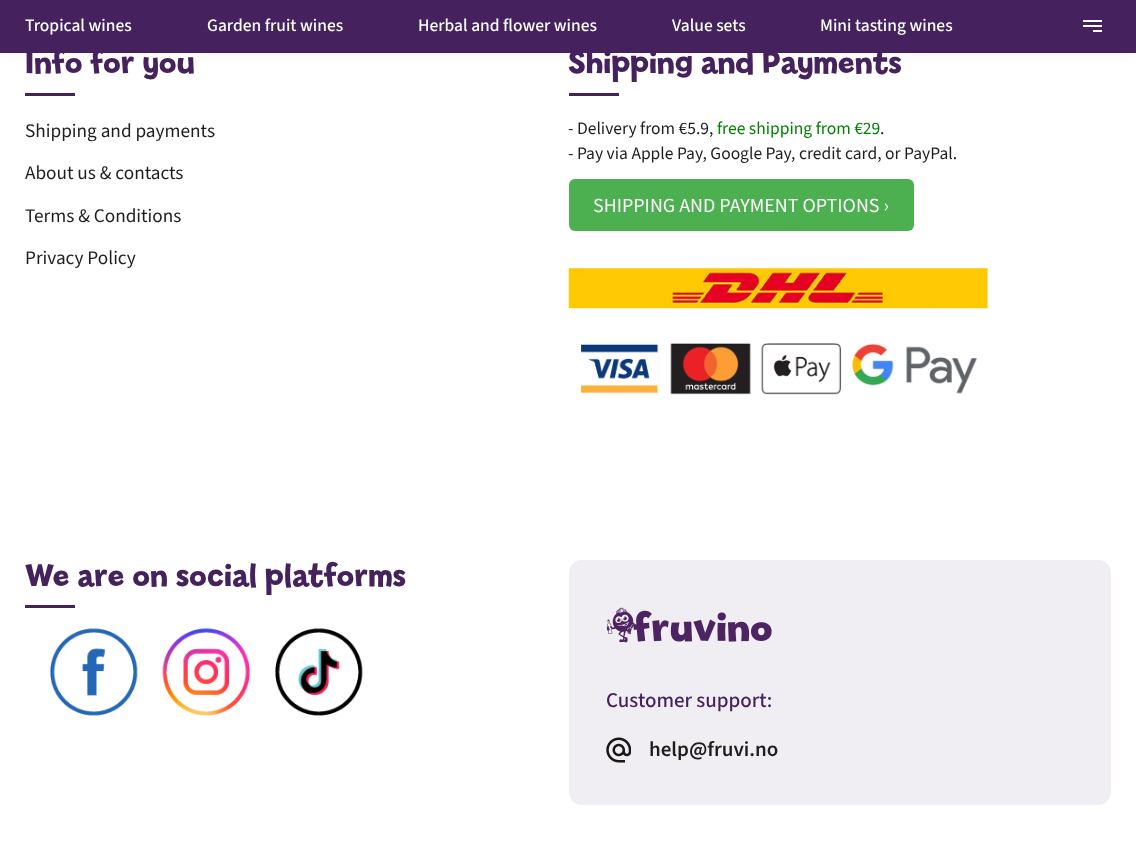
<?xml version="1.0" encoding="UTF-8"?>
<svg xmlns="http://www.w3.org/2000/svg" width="1136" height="849">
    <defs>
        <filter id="blur1" x="-50%" y="-200%" width="200%" height="500%"><feGaussianBlur stdDeviation="6"/></filter>
    </defs>
    <rect width="100%" height="100%" fill="#FFFFFF"/>
    <rect x="0" y="-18" width="1136" height="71" fill="#000000" fill-opacity="0.05" filter="url(#blur1)"/>
    <rect x="0" y="0" width="1136" height="53" fill="#45225E"/>
    <text x="25" y="31" font-family="'Source Sans 3'" font-size="17.5" font-weight="500" fill="#FFFFFF">Tropical wines</text>
    <text x="207" y="31" font-family="'Source Sans 3'" font-size="17.5" font-weight="500" fill="#FFFFFF">Garden fruit wines</text>
    <text x="418" y="31" font-family="'Source Sans 3'" font-size="17.5" font-weight="500" fill="#FFFFFF">Herbal and flower wines</text>
    <text x="672" y="31" font-family="'Source Sans 3'" font-size="17.5" font-weight="500" fill="#FFFFFF">Value sets</text>
    <text x="820" y="31" font-family="'Source Sans 3'" font-size="17.5" font-weight="500" fill="#FFFFFF">Mini tasting wines</text>
    <rect x="1083" y="20" width="19" height="2" fill="#FFFFFF"/>
    <rect x="1083" y="25" width="19" height="2" fill="#FFFFFF"/>
    <rect x="1093" y="30" width="9" height="2" fill="#FFFFFF"/>
    <text x="25" y="73" font-family="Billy" font-size="31.5" font-weight="600" fill="#45225E">Info for you</text>
    <rect x="25" y="93" width="50" height="3" fill="#45225E"/>
    <text x="25" y="137" font-family="'Source Sans 3'" font-size="19.25" fill="#1E1E1C">Shipping and payments</text>
    <text x="25" y="179" font-family="'Source Sans 3'" font-size="19.25" fill="#1E1E1C">About us &amp; contacts</text>
    <text x="25" y="222" font-family="'Source Sans 3'" font-size="19.25" fill="#1E1E1C">Terms &amp; Conditions</text>
    <text x="25" y="264" font-family="'Source Sans 3'" font-size="19.25" fill="#1E1E1C">Privacy Policy</text>
    <text x="568" y="73" font-family="Billy" font-size="31.5" font-weight="600" fill="#45225E">Shipping and Payments</text>
    <rect x="569" y="93" width="50" height="3" fill="#45225E"/>
    <text x="568" y="134" font-family="'Source Sans 3'" font-size="17.5" fill="#1E1E1C">- Delivery from €5.9,</text>
    <text x="717" y="134" font-family="'Source Sans 3'" font-size="17.5" fill="#008000">free shipping from €29</text>
    <text x="880" y="134" font-family="'Source Sans 3'" font-size="17.5" fill="#1E1E1C">.</text>
    <text x="568" y="159" font-family="'Source Sans 3'" font-size="17.5" fill="#1E1E1C">- Pay via Apple Pay, Google Pay, credit card, or PayPal.</text>
    <rect x="569" y="179" width="345" height="52" rx="6" fill="#4CAF50"/>
    <text x="593" y="212" font-family="'Source Sans 3'" font-size="20" fill="#FFFFFF">SHIPPING AND PAYMENT OPTIONS ›</text>
    <image x="568" y="268" width="420" height="41" href="img_01.png"/>
    <image x="581" y="343" width="397" height="52" href="img_02.png"/>
    <text x="25" y="586" font-family="Billy" font-size="31.5" font-weight="600" fill="#45225E">We are on social platforms</text>
    <rect x="25" y="605" width="50" height="3" fill="#45225E"/>
    <image x="50" y="628" width="88" height="88" href="img_03.png"/>
    <image x="162" y="628" width="88" height="88" href="img_04.png"/>
    <image x="275" y="628" width="88" height="88" href="img_05.png"/>
    <rect x="569" y="560" width="542" height="245" rx="13" fill="#F1EEF3"/>
    <image x="606" y="607" width="166" height="36" href="img_06.png"/>
    <text x="606" y="707" font-family="'Source Sans 3'" font-size="21" font-weight="500" fill="#45225E">Customer support:</text>
    <image x="606" y="737" width="25" height="26" href="img_07.png"/>
    <text x="649" y="756" font-family="'Source Sans 3'" font-size="21" font-weight="600" fill="#1E1E1C">help@fruvi.no</text>
</svg>
